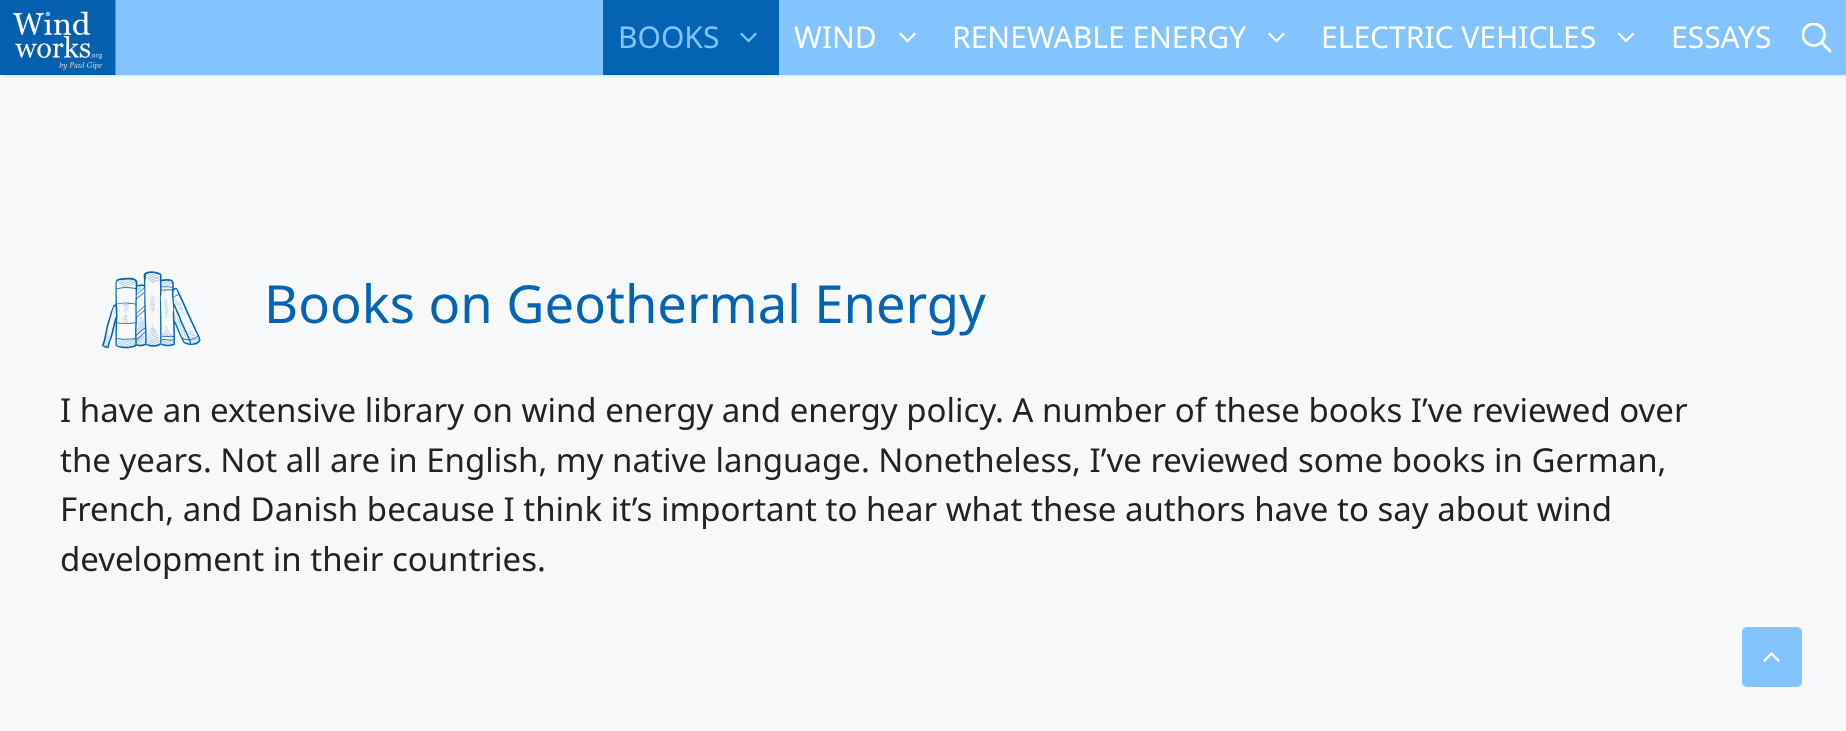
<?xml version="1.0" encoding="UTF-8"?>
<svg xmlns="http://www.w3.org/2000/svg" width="1846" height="731">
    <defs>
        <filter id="blur1" x="-50%" y="-200%" width="200%" height="500%"><feGaussianBlur stdDeviation="1.5"/></filter>
    </defs>
    <rect width="100%" height="100%" fill="#F7F8F9"/>
    <rect x="3" y="6" width="1841" height="69" fill="#000000" fill-opacity="0.2" filter="url(#blur1)"/>
    <rect x="115" y="0" width="1731" height="75" fill="#83C3FF"/>
    <image x="0" y="0" width="116" height="75" href="img_01.png"/>
    <rect x="603" y="0" width="176" height="75" fill="#0563B4"/>
    <text x="618" y="48" font-family="Noto Sans" font-size="30" fill="#83C3FF">BOOKS</text>
    <image x="740" y="32" width="17" height="11" href="img_02.png"/>
    <text x="794" y="48" font-family="Noto Sans" font-size="30" fill="#FFFFFF">WIND</text>
    <image x="899" y="32" width="17" height="11" href="img_03.png"/>
    <text x="952" y="48" font-family="Noto Sans" font-size="30" fill="#FFFFFF">RENEWABLE ENERGY</text>
    <image x="1268" y="32" width="17" height="11" href="img_03.png"/>
    <text x="1321" y="48" font-family="Noto Sans" font-size="30" fill="#FFFFFF">ELECTRIC VEHICLES</text>
    <image x="1617" y="32" width="18" height="11" href="img_04.png"/>
    <text x="1671" y="48" font-family="Noto Sans" font-size="30" fill="#FFFFFF">ESSAYS</text>
    <image x="1802" y="23" width="30" height="30" href="img_05.png"/>
    <image x="102" y="271" width="99" height="78" href="img_06.png"/>
    <text x="264" y="323" font-family="Noto Sans" font-size="52.5" fill="#0563B4">Books on Geothermal Energy</text>
    <text font-family="Noto Sans" font-size="33" fill="#222222">
        <tspan x="60" y="422">I have an extensive library on wind energy and energy policy. A number of these books I’ve reviewed over</tspan>
        <tspan x="60" y="472">the years. Not all are in English, my native language. Nonetheless, I’ve reviewed some books in German,</tspan>
        <tspan x="60" y="521">French, and Danish because I think it’s important to hear what these authors have to say about wind</tspan>
        <tspan x="60" y="571">development in their countries.</tspan>
    </text>
    <rect x="1742" y="627" width="60" height="60" rx="5" fill="#83C3FF"/>
    <image x="1763" y="652" width="17" height="10" href="img_07.png"/>
</svg>
